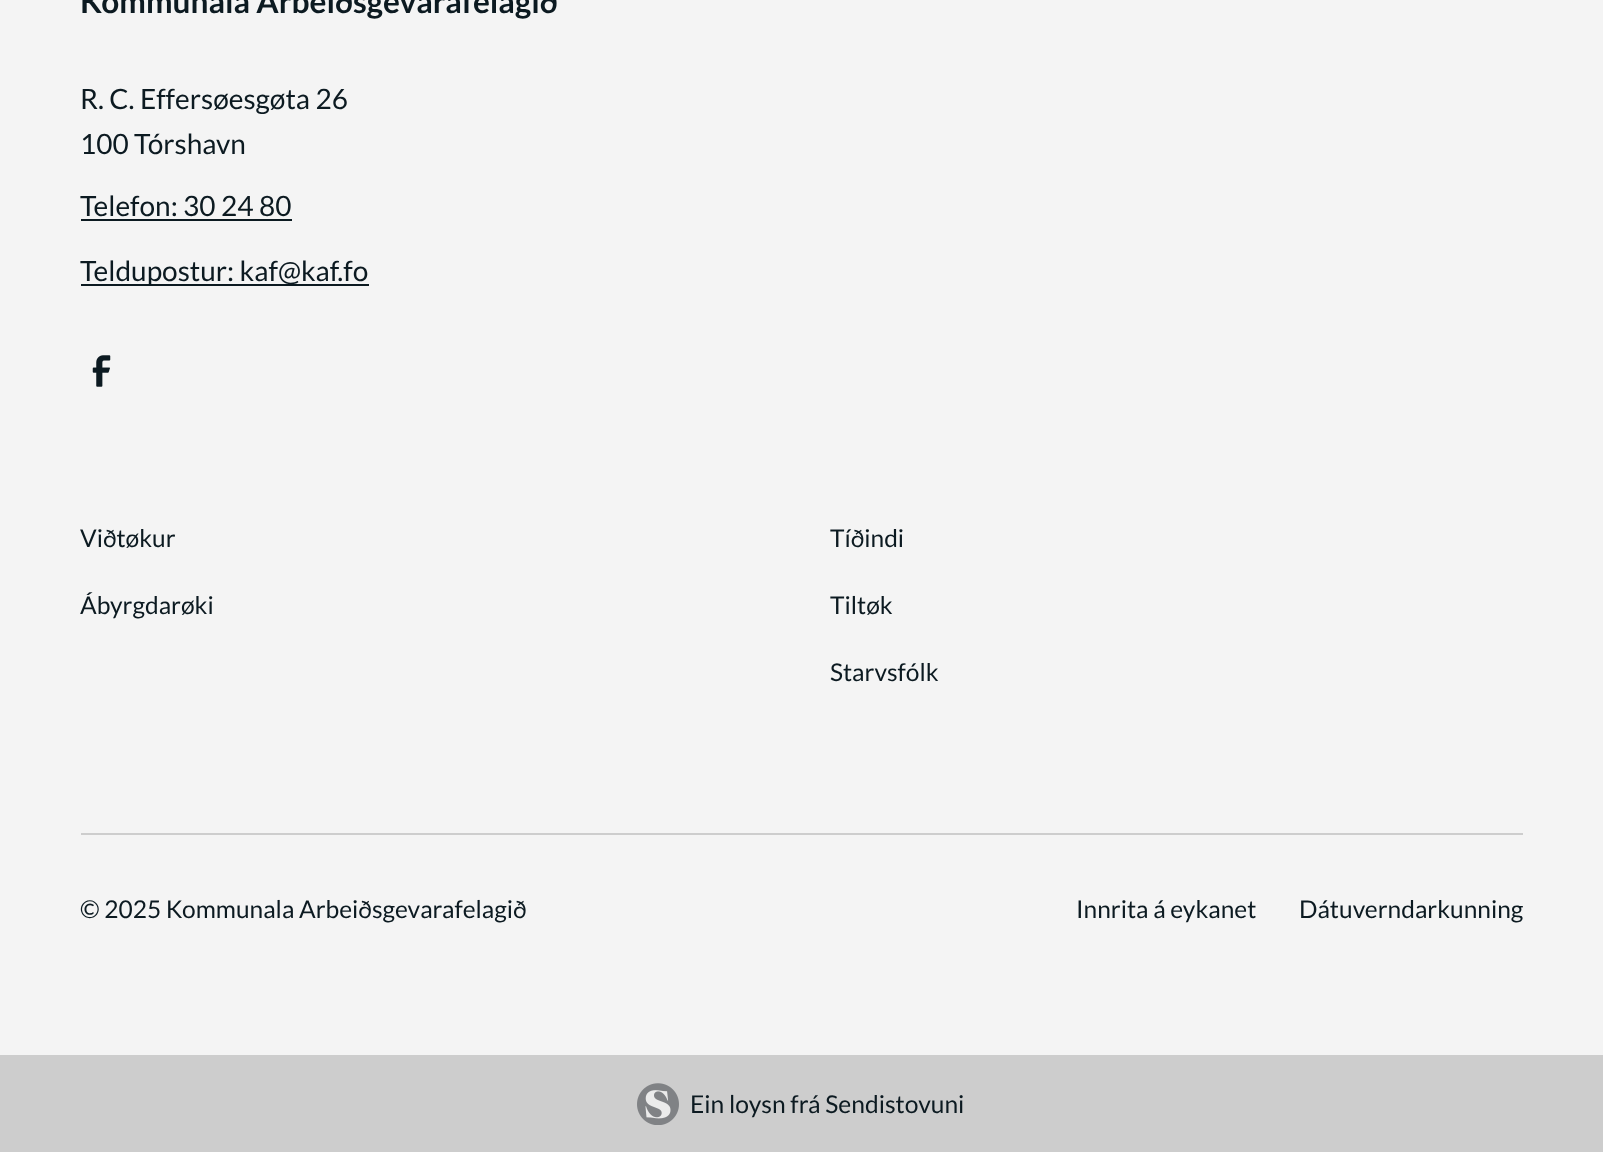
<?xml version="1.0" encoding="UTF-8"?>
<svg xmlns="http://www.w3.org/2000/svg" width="1603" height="1152">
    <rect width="100%" height="100%" fill="#F4F4F4"/>
    <text x="80" y="13" font-family="Lato" font-size="31.6" font-weight="700" fill="#0C1A21">Kommunala Arbeiðsgevarafelagið</text>
    <text font-family="Lato" font-size="28" fill="#0C1A21">
        <tspan x="80" y="109">R. C. Effersøesgøta 26</tspan>
        <tspan x="80" y="154">100 Tórshavn</tspan>
    </text>
    <text x="80" y="216" font-family="Lato" font-size="28" fill="#0C1A21">Telefon: 30 24 80</text>
    <rect x="81" y="219" width="211" height="2" fill="#0C1A21"/>
    <rect x="81" y="284" width="288" height="2" fill="#0C1A21"/>
    <text x="80" y="281" font-family="Lato" font-size="28" fill="#0C1A21">Teldupostur: kaf@kaf.fo</text>
    <image x="92" y="355" width="19" height="32" href="img_01.png"/>
    <text x="80" y="547" font-family="Lato" font-size="24.5" fill="#0C1A21">Viðtøkur</text>
    <text x="80" y="614" font-family="Lato" font-size="24.5" fill="#0C1A21">Ábyrgdarøki</text>
    <text x="830" y="547" font-family="Lato" font-size="24.5" fill="#0C1A21">Tíðindi</text>
    <text x="830" y="614" font-family="Lato" font-size="24.5" fill="#0C1A21">Tiltøk</text>
    <text x="830" y="681" font-family="Lato" font-size="24.5" fill="#0C1A21">Starvsfólk</text>
    <rect x="81" y="833" width="1442" height="2" fill="#CDCDCD"/>
    <text x="80" y="918" font-family="Lato" font-size="24.5" fill="#0C1A21">© 2025 Kommunala Arbeiðsgevarafelagið</text>
    <text x="1076" y="918" font-family="Lato" font-size="24.5" fill="#0C1A21">Innrita á eykanet</text>
    <text x="1299" y="918" font-family="Lato" font-size="24.5" fill="#0C1A21">Dátuverndarkunning</text>
    <rect x="0" y="1055" width="1603" height="97" fill="#CDCDCD"/>
    <image x="637" y="1083" width="42" height="42" href="img_02.png"/>
    <text x="690" y="1113" font-family="Lato" font-size="24.6" fill="#0C1A21">Ein loysn frá Sendistovuni</text>
</svg>
